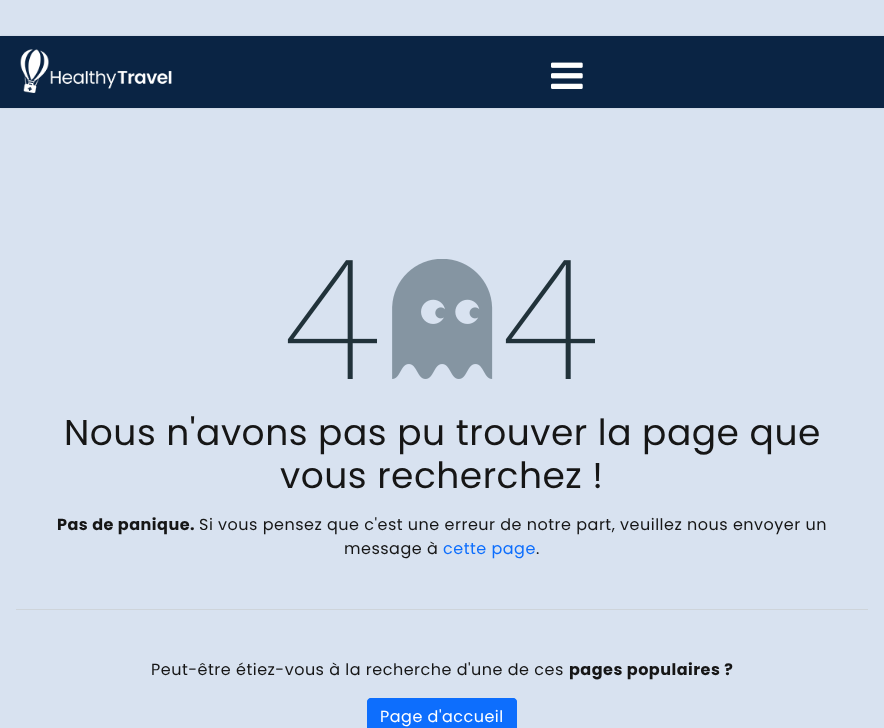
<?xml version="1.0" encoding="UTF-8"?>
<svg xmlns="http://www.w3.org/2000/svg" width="884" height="728">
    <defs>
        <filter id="blur1" x="-50%" y="-200%" width="200%" height="500%"><feGaussianBlur stdDeviation="1"/></filter>
    </defs>
    <rect width="100%" height="100%" fill="#D8E2F0"/>
    <rect x="0" y="36" width="884" height="72" fill="#000000" fill-opacity="0.1" filter="url(#blur1)"/>
    <rect x="0" y="36" width="884" height="72" fill="#0A2444"/>
    <image x="20" y="49" width="152" height="44" href="img_01.png"/>
    <image x="551" y="62" width="32" height="27" href="img_02.png"/>
    <image x="287" y="259" width="308" height="120" href="img_03.png"/>
    <text x="64" y="445" font-family="Poppins" font-size="36" letter-spacing="0.5" fill="#161616">Nous n'avons pas pu trouver la page que</text>
    <text x="280" y="488" font-family="Poppins" font-size="36" letter-spacing="0.5" fill="#161616">vous recherchez !</text>
    <text x="57" y="530" font-family="Poppins" font-size="16" font-weight="700" letter-spacing="0.5" fill="#161616">Pas de panique.</text>
    <text x="199" y="530" font-family="Poppins" font-size="16" letter-spacing="0.5" fill="#161616">Si vous pensez que c'est une erreur de notre part, veuillez nous envoyer un</text>
    <text x="344" y="554" font-family="Poppins" font-size="16" letter-spacing="0.5" fill="#161616">message à</text>
    <text x="443" y="554" font-family="Poppins" font-size="16" letter-spacing="0.5" fill="#0D6EFD">cette page</text>
    <text x="536" y="554" font-family="Poppins" font-size="16" letter-spacing="0.5" fill="#161616">.</text>
    <rect x="16" y="609" width="852" height="1" fill="#CED4DA"/>
    <text x="151" y="675" font-family="Poppins" font-size="16" letter-spacing="0.5" fill="#161616">Peut-être étiez-vous à la recherche d'une de ces</text>
    <text x="569" y="675" font-family="Poppins" font-size="16" font-weight="700" letter-spacing="0.5" fill="#161616">pages populaires ?</text>
    <path d="M 371 698 H 513 C 515 698 517 700 517 702 V 728 H 367 V 702 C 367 700 369 698 371 698 Z" fill="#0D6EFD"/>
    <rect x="367.5" y="698.5" width="149" height="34" rx="3.5" fill="none" stroke="#0D6EFD"/>
    <text x="380" y="722" font-family="Poppins" font-size="16" letter-spacing="0.5" fill="#FFFFFF">Page d'accueil</text>
</svg>
